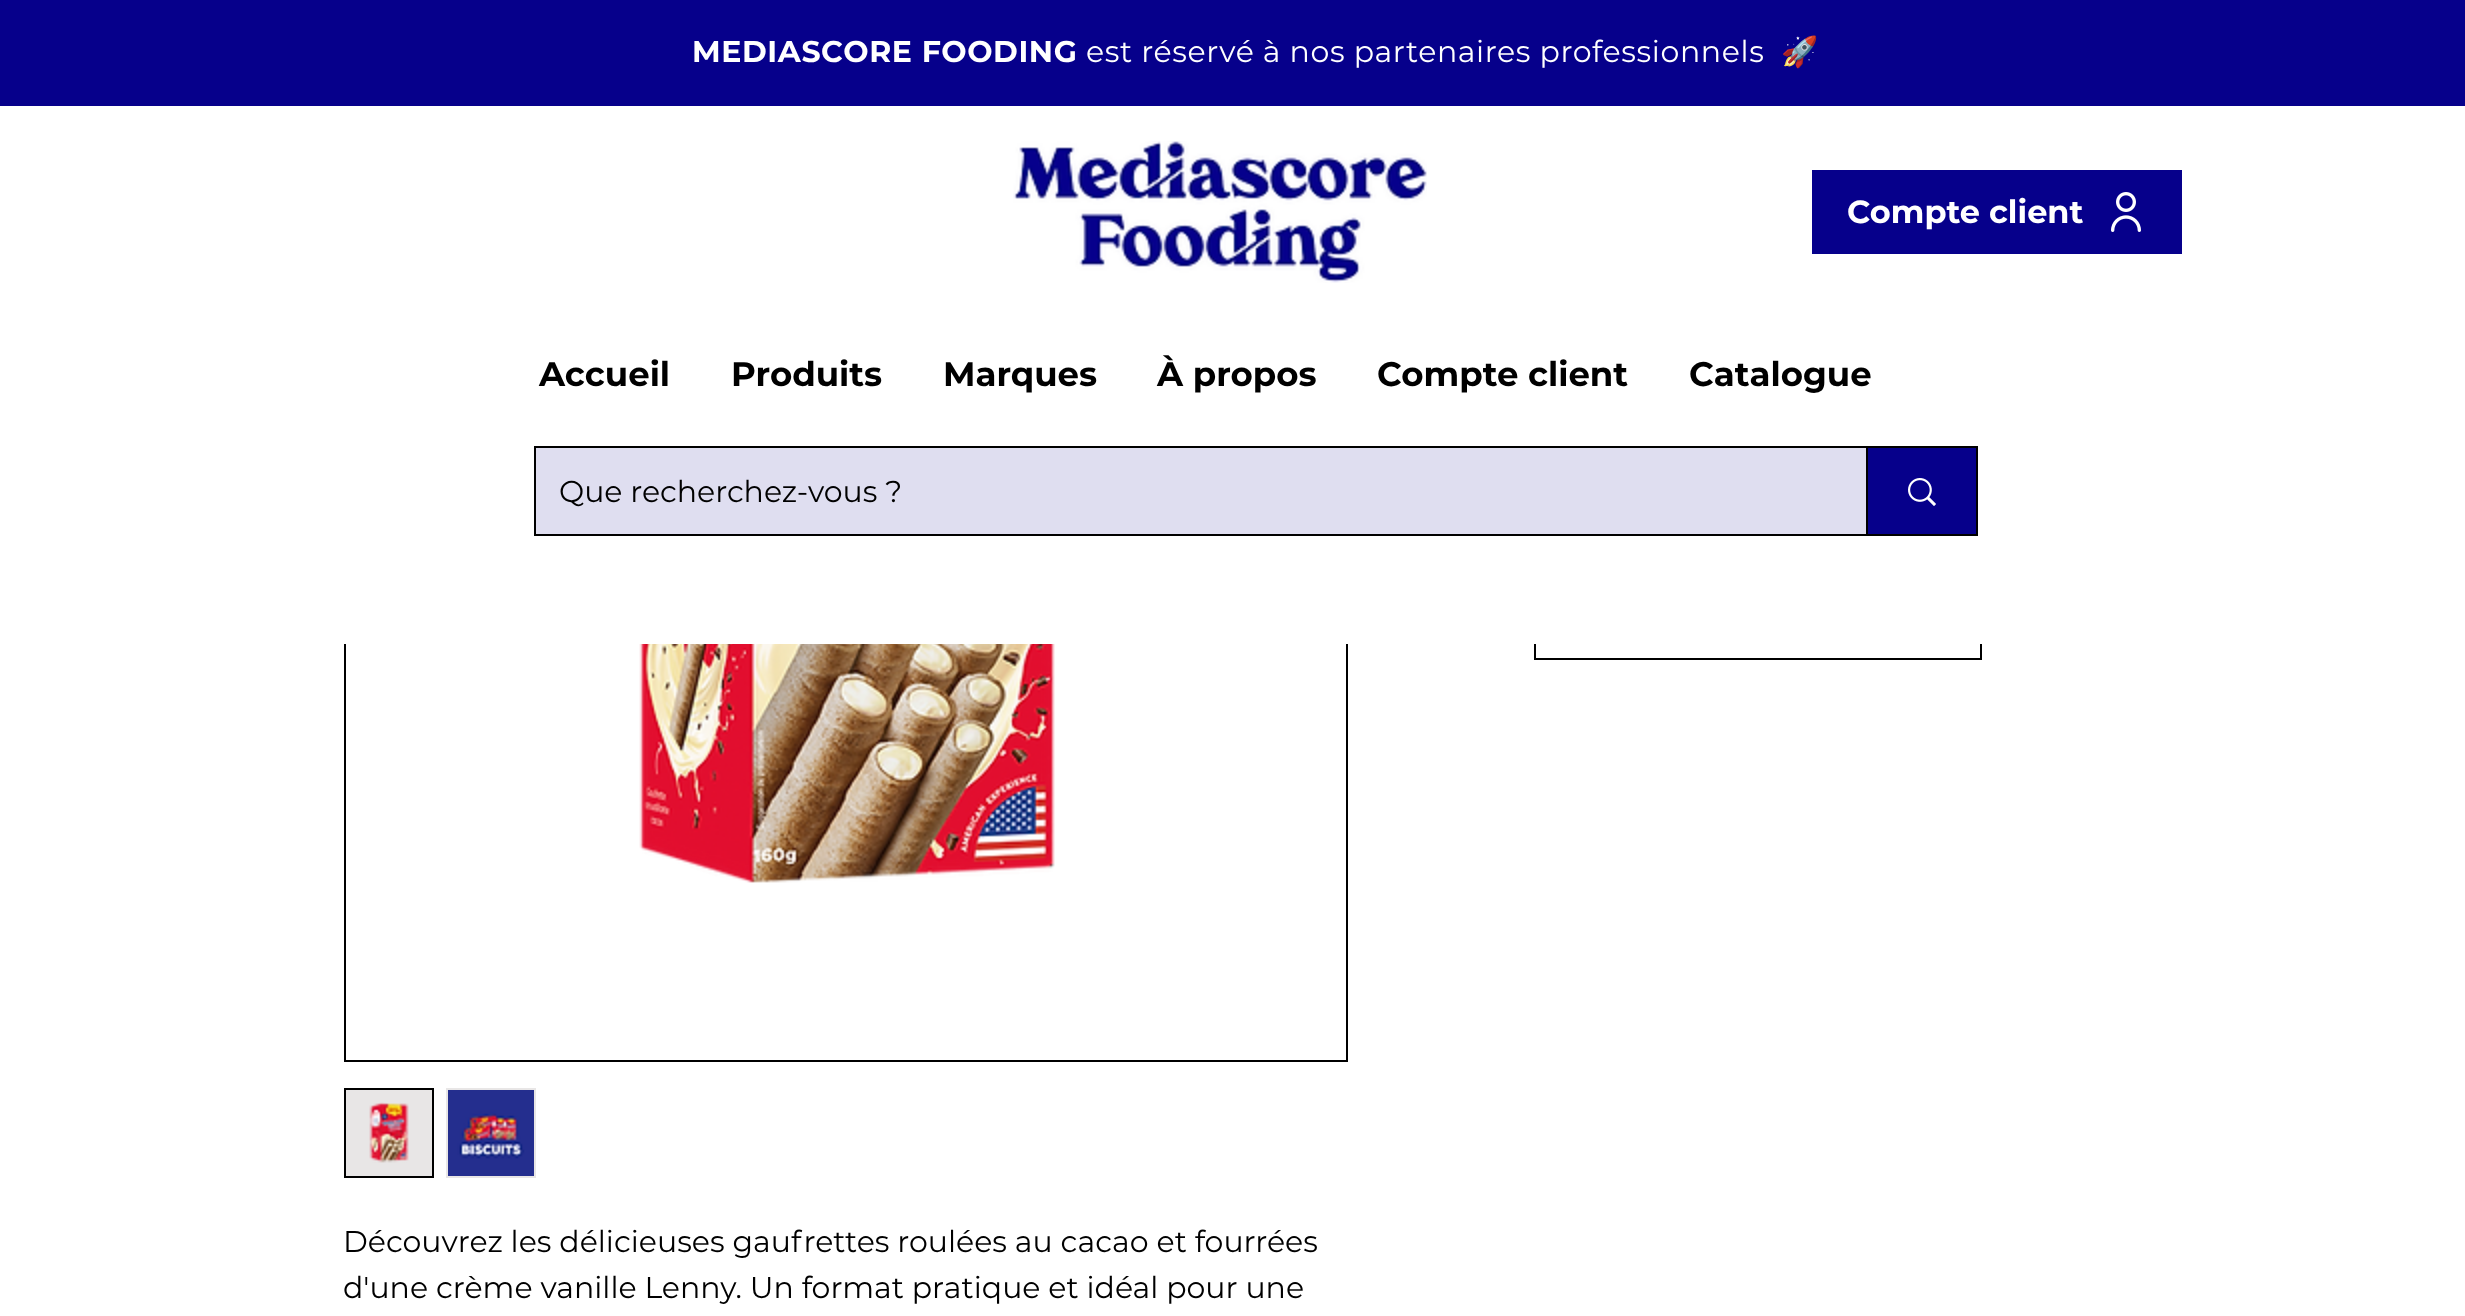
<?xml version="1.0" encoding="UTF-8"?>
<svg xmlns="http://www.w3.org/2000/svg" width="2465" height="1316">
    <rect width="100%" height="100%" fill="#FFFFFF"/>
    <rect x="345" y="59" width="1002" height="1002" fill="none" stroke="#000000" stroke-width="2"/>
    <rect x="0" y="0" width="2465" height="106" fill="#06008B"/>
    <text x="692" y="62" font-family="Montserrat" font-size="30" font-weight="700" letter-spacing="0.6" fill="#FFFFFF">MEDIASCORE FOODING</text>
    <text x="1086" y="62" font-family="Montserrat" font-size="30" letter-spacing="0.6" fill="#FFFFFF">est réservé à nos partenaires professionnels</text>
    <text x="1781" y="62" font-family="Noto Color Emoji" font-size="30" fill="#000000">🚀</text>
    <rect x="1535" y="581" width="446" height="78" fill="none" stroke="#000000" stroke-width="2"/>
    <rect x="344" y="106" width="1638" height="538" fill="#FFFFFF"/>
    <image x="1013" y="141" width="414" height="142" href="img_01.png"/>
    <rect x="1812" y="170" width="370" height="84" fill="#06008B"/>
    <text x="1847" y="223" font-family="Montserrat" font-size="32" font-weight="700" fill="#FFFFFF">Compte client</text>
    <image x="2111" y="192" width="30" height="40" href="img_02.png"/>
    <text x="539" y="386" font-family="Montserrat" font-size="34" font-weight="700" fill="#000000">Accueil</text>
    <text x="731" y="386" font-family="Montserrat" font-size="34" font-weight="700" fill="#000000">Produits</text>
    <text x="943" y="386" font-family="Montserrat" font-size="34" font-weight="700" fill="#000000">Marques</text>
    <text x="1157" y="386" font-family="Montserrat" font-size="34" font-weight="700" fill="#000000">À propos</text>
    <text x="1377" y="386" font-family="Montserrat" font-size="34" font-weight="700" fill="#000000">Compte client</text>
    <text x="1689" y="386" font-family="Montserrat" font-size="34" font-weight="700" fill="#000000">Catalogue</text>
    <rect x="535" y="447" width="1442" height="88" fill="none" stroke="#000000" stroke-width="2"/>
    <rect x="536" y="448" width="1330" height="86" fill="#DFDEF0"/>
    <text x="559" y="502" font-family="Montserrat" font-size="30" fill="#000000">Que recherchez-vous ?</text>
    <rect x="1868" y="448" width="108" height="86" fill="#06008B"/>
    <rect x="1866" y="448" width="2" height="86" fill="#000000"/>
    <image x="1908" y="478" width="28" height="28" href="img_03.png"/>
    <image x="639" y="644" width="416" height="239" href="img_04.png"/>
    <rect x="345" y="1089" width="88" height="88" fill="#E8E6E6" stroke="#000000" stroke-width="2"/>
    <image x="369" y="1102" width="40" height="61" href="img_05.png"/>
    <rect x="446" y="1088" width="90" height="90" fill="#E8E6E6"/>
    <image x="448" y="1090" width="86" height="86" href="img_06.png"/>
    <text font-family="Montserrat" font-size="30" fill="#000000">
        <tspan x="343" y="1252">Découvrez les délicieuses gaufrettes roulées au cacao et fourrées</tspan>
        <tspan x="343" y="1298">d'une crème vanille Lenny. Un format pratique et idéal pour une</tspan>
    </text>
</svg>
